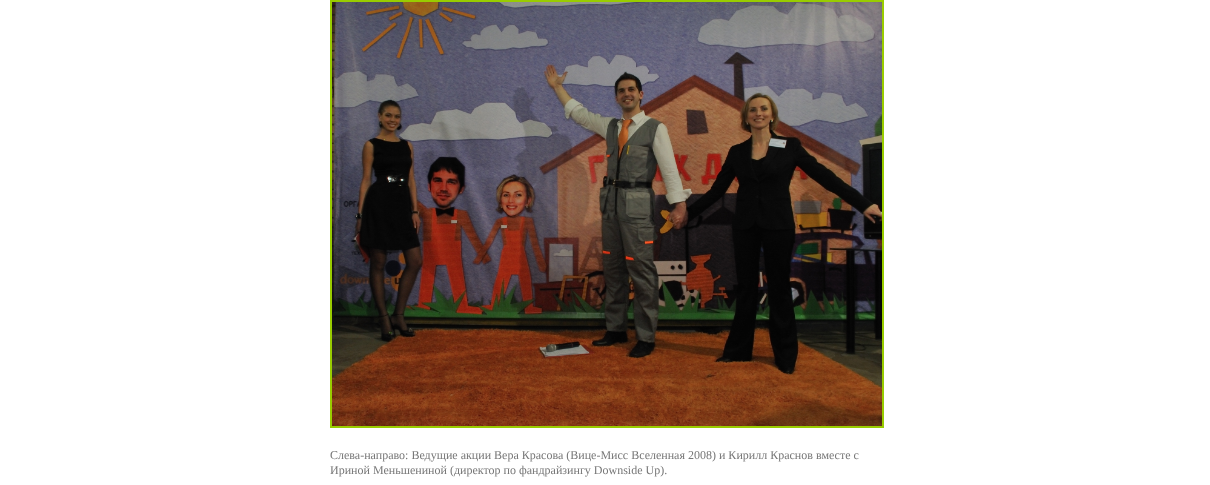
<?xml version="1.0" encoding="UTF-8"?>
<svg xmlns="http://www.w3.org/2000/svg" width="1210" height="485">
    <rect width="100%" height="100%" fill="#FFFFFF"/>
    <rect x="331" y="1" width="552" height="426" fill="none" stroke="#99CC00" stroke-width="2"/>
    <image x="332" y="2" width="550" height="424" href="img_01.png"/>
    <text font-family="Liberation Serif" font-size="12" fill="#777777">
        <tspan x="330" y="459">Слева-направо: Ведущие акции Вера Красова (Вице-Мисс Вселенная 2008) и Кирилл Краснов вместе с</tspan>
        <tspan x="330" y="474">Ириной Меньшениной (директор по фандрайзингу Downside Up).</tspan>
    </text>
</svg>
